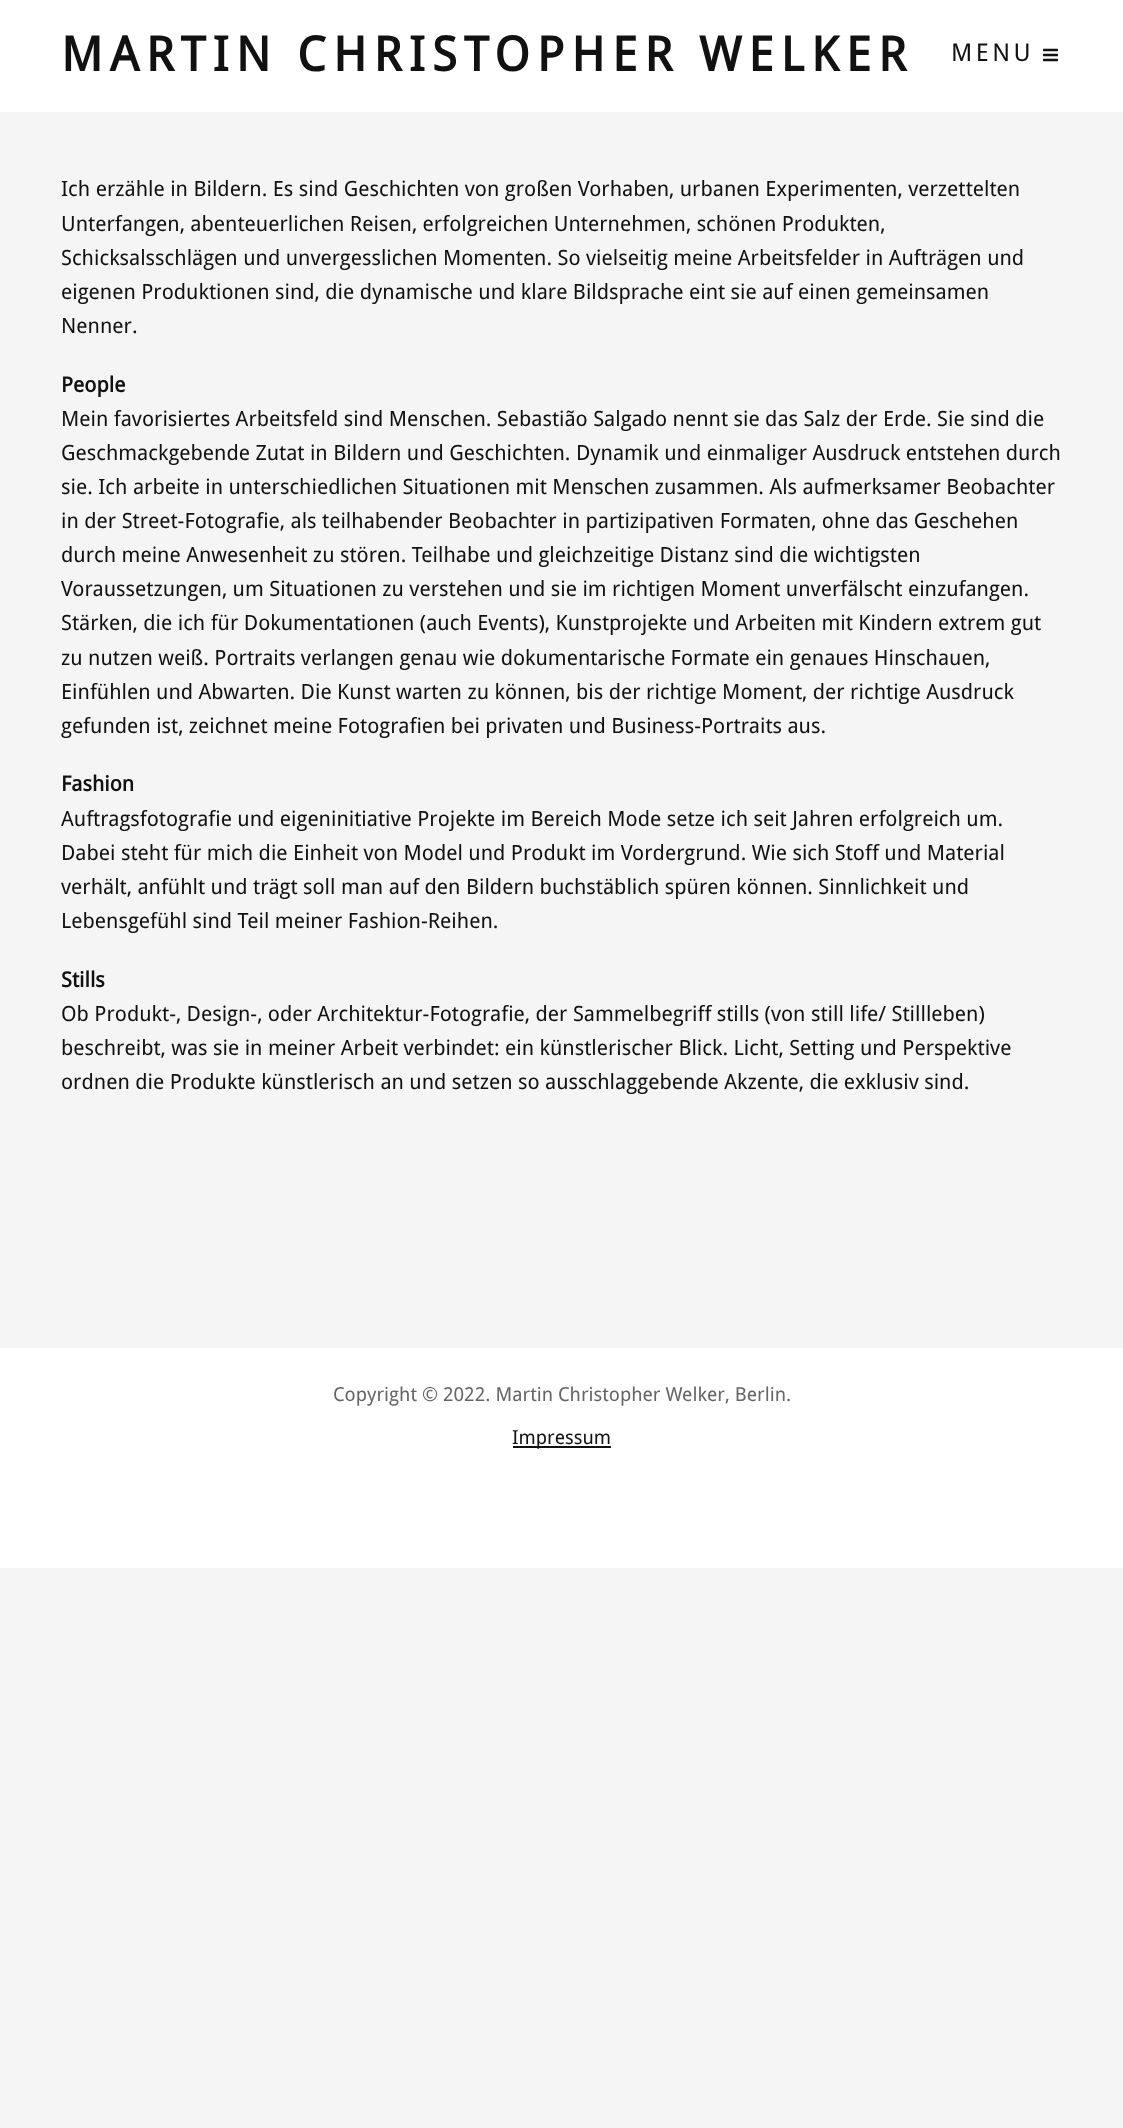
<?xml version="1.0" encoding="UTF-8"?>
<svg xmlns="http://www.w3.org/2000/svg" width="1123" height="2128">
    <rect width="100%" height="100%" fill="#F5F5F5"/>
    <rect x="0" y="0" width="1123" height="112" fill="#FFFFFF"/>
    <text x="61" y="71" font-family="Droid Sans" font-size="47.9" font-weight="700" letter-spacing="7" fill="#111111">MARTIN CHRISTOPHER WELKER</text>
    <text x="951" y="61" font-family="Droid Sans" font-size="24.5" letter-spacing="3.5" fill="#111111">MENU</text>
    <image x="1043" y="48" width="15" height="14" href="img_01.png"/>
    <text font-family="Droid Sans" font-size="21" fill="#111111">
        <tspan x="61" y="196">Ich erzähle in Bildern. Es sind Geschichten von großen Vorhaben, urbanen Experimenten, verzettelten</tspan>
        <tspan x="61" y="231">Unterfangen, abenteuerlichen Reisen, erfolgreichen Unternehmen, schönen Produkten,</tspan>
        <tspan x="61" y="265">Schicksalsschlägen und unvergesslichen Momenten. So vielseitig meine Arbeitsfelder in Aufträgen und</tspan>
        <tspan x="61" y="299">eigenen Produktionen sind, die dynamische und klare Bildsprache eint sie auf einen gemeinsamen</tspan>
        <tspan x="61" y="333">Nenner.</tspan>
    </text>
    <text x="61" y="392" font-family="Droid Sans" font-size="21" font-weight="700" fill="#111111">People</text>
    <text font-family="Droid Sans" font-size="21" fill="#111111">
        <tspan x="61" y="426">Mein favorisiertes Arbeitsfeld sind Menschen. Sebastião Salgado nennt sie das Salz der Erde. Sie sind die</tspan>
        <tspan x="61" y="460">Geschmackgebende Zutat in Bildern und Geschichten. Dynamik und einmaliger Ausdruck entstehen durch</tspan>
        <tspan x="61" y="494">sie. Ich arbeite in unterschiedlichen Situationen mit Menschen zusammen. Als aufmerksamer Beobachter</tspan>
        <tspan x="61" y="528">in der Street-Fotografie, als teilhabender Beobachter in partizipativen Formaten, ohne das Geschehen</tspan>
        <tspan x="61" y="562">durch meine Anwesenheit zu stören. Teilhabe und gleichzeitige Distanz sind die wichtigsten</tspan>
        <tspan x="61" y="596">Voraussetzungen, um Situationen zu verstehen und sie im richtigen Moment unverfälscht einzufangen.</tspan>
        <tspan x="61" y="630">Stärken, die ich für Dokumentationen (auch Events), Kunstprojekte und Arbeiten mit Kindern extrem gut</tspan>
        <tspan x="61" y="665">zu nutzen weiß. Portraits verlangen genau wie dokumentarische Formate ein genaues Hinschauen,</tspan>
        <tspan x="61" y="699">Einfühlen und Abwarten. Die Kunst warten zu können, bis der richtige Moment, der richtige Ausdruck</tspan>
        <tspan x="61" y="733">gefunden ist, zeichnet meine Fotografien bei privaten und Business-Portraits aus.</tspan>
    </text>
    <text x="61" y="791" font-family="Droid Sans" font-size="21" font-weight="700" fill="#111111">Fashion</text>
    <text font-family="Droid Sans" font-size="21" fill="#111111">
        <tspan x="61" y="826">Auftragsfotografie und eigeninitiative Projekte im Bereich Mode setze ich seit Jahren erfolgreich um.</tspan>
        <tspan x="61" y="860">Dabei steht für mich die Einheit von Model und Produkt im Vordergrund. Wie sich Stoff und Material</tspan>
        <tspan x="61" y="894">verhält, anfühlt und trägt soll man auf den Bildern buchstäblich spüren können. Sinnlichkeit und</tspan>
        <tspan x="61" y="928">Lebensgefühl sind Teil meiner Fashion-Reihen.</tspan>
    </text>
    <text x="61" y="987" font-family="Droid Sans" font-size="21" font-weight="700" fill="#111111">Stills</text>
    <text font-family="Droid Sans" font-size="21" fill="#111111">
        <tspan x="61" y="1021">Ob Produkt-, Design-, oder Architektur-Fotografie, der Sammelbegriff stills (von still life/ Stillleben)</tspan>
        <tspan x="61" y="1055">beschreibt, was sie in meiner Arbeit verbindet: ein künstlerischer Blick. Licht, Setting und Perspektive</tspan>
        <tspan x="61" y="1089">ordnen die Produkte künstlerisch an und setzen so ausschlaggebende Akzente, die exklusiv sind.</tspan>
    </text>
    <rect x="0" y="1348" width="1123" height="220" fill="#FFFFFF"/>
    <text x="333" y="1401" font-family="Droid Sans" font-size="19.25" fill="#666666">Copyright © 2022. Martin Christopher Welker, Berlin.</text>
    <rect x="513" y="1446" width="98" height="2" fill="#111111"/>
    <text x="512" y="1444" font-family="Droid Sans" font-size="19.25" fill="#111111">Impressum</text>
</svg>
